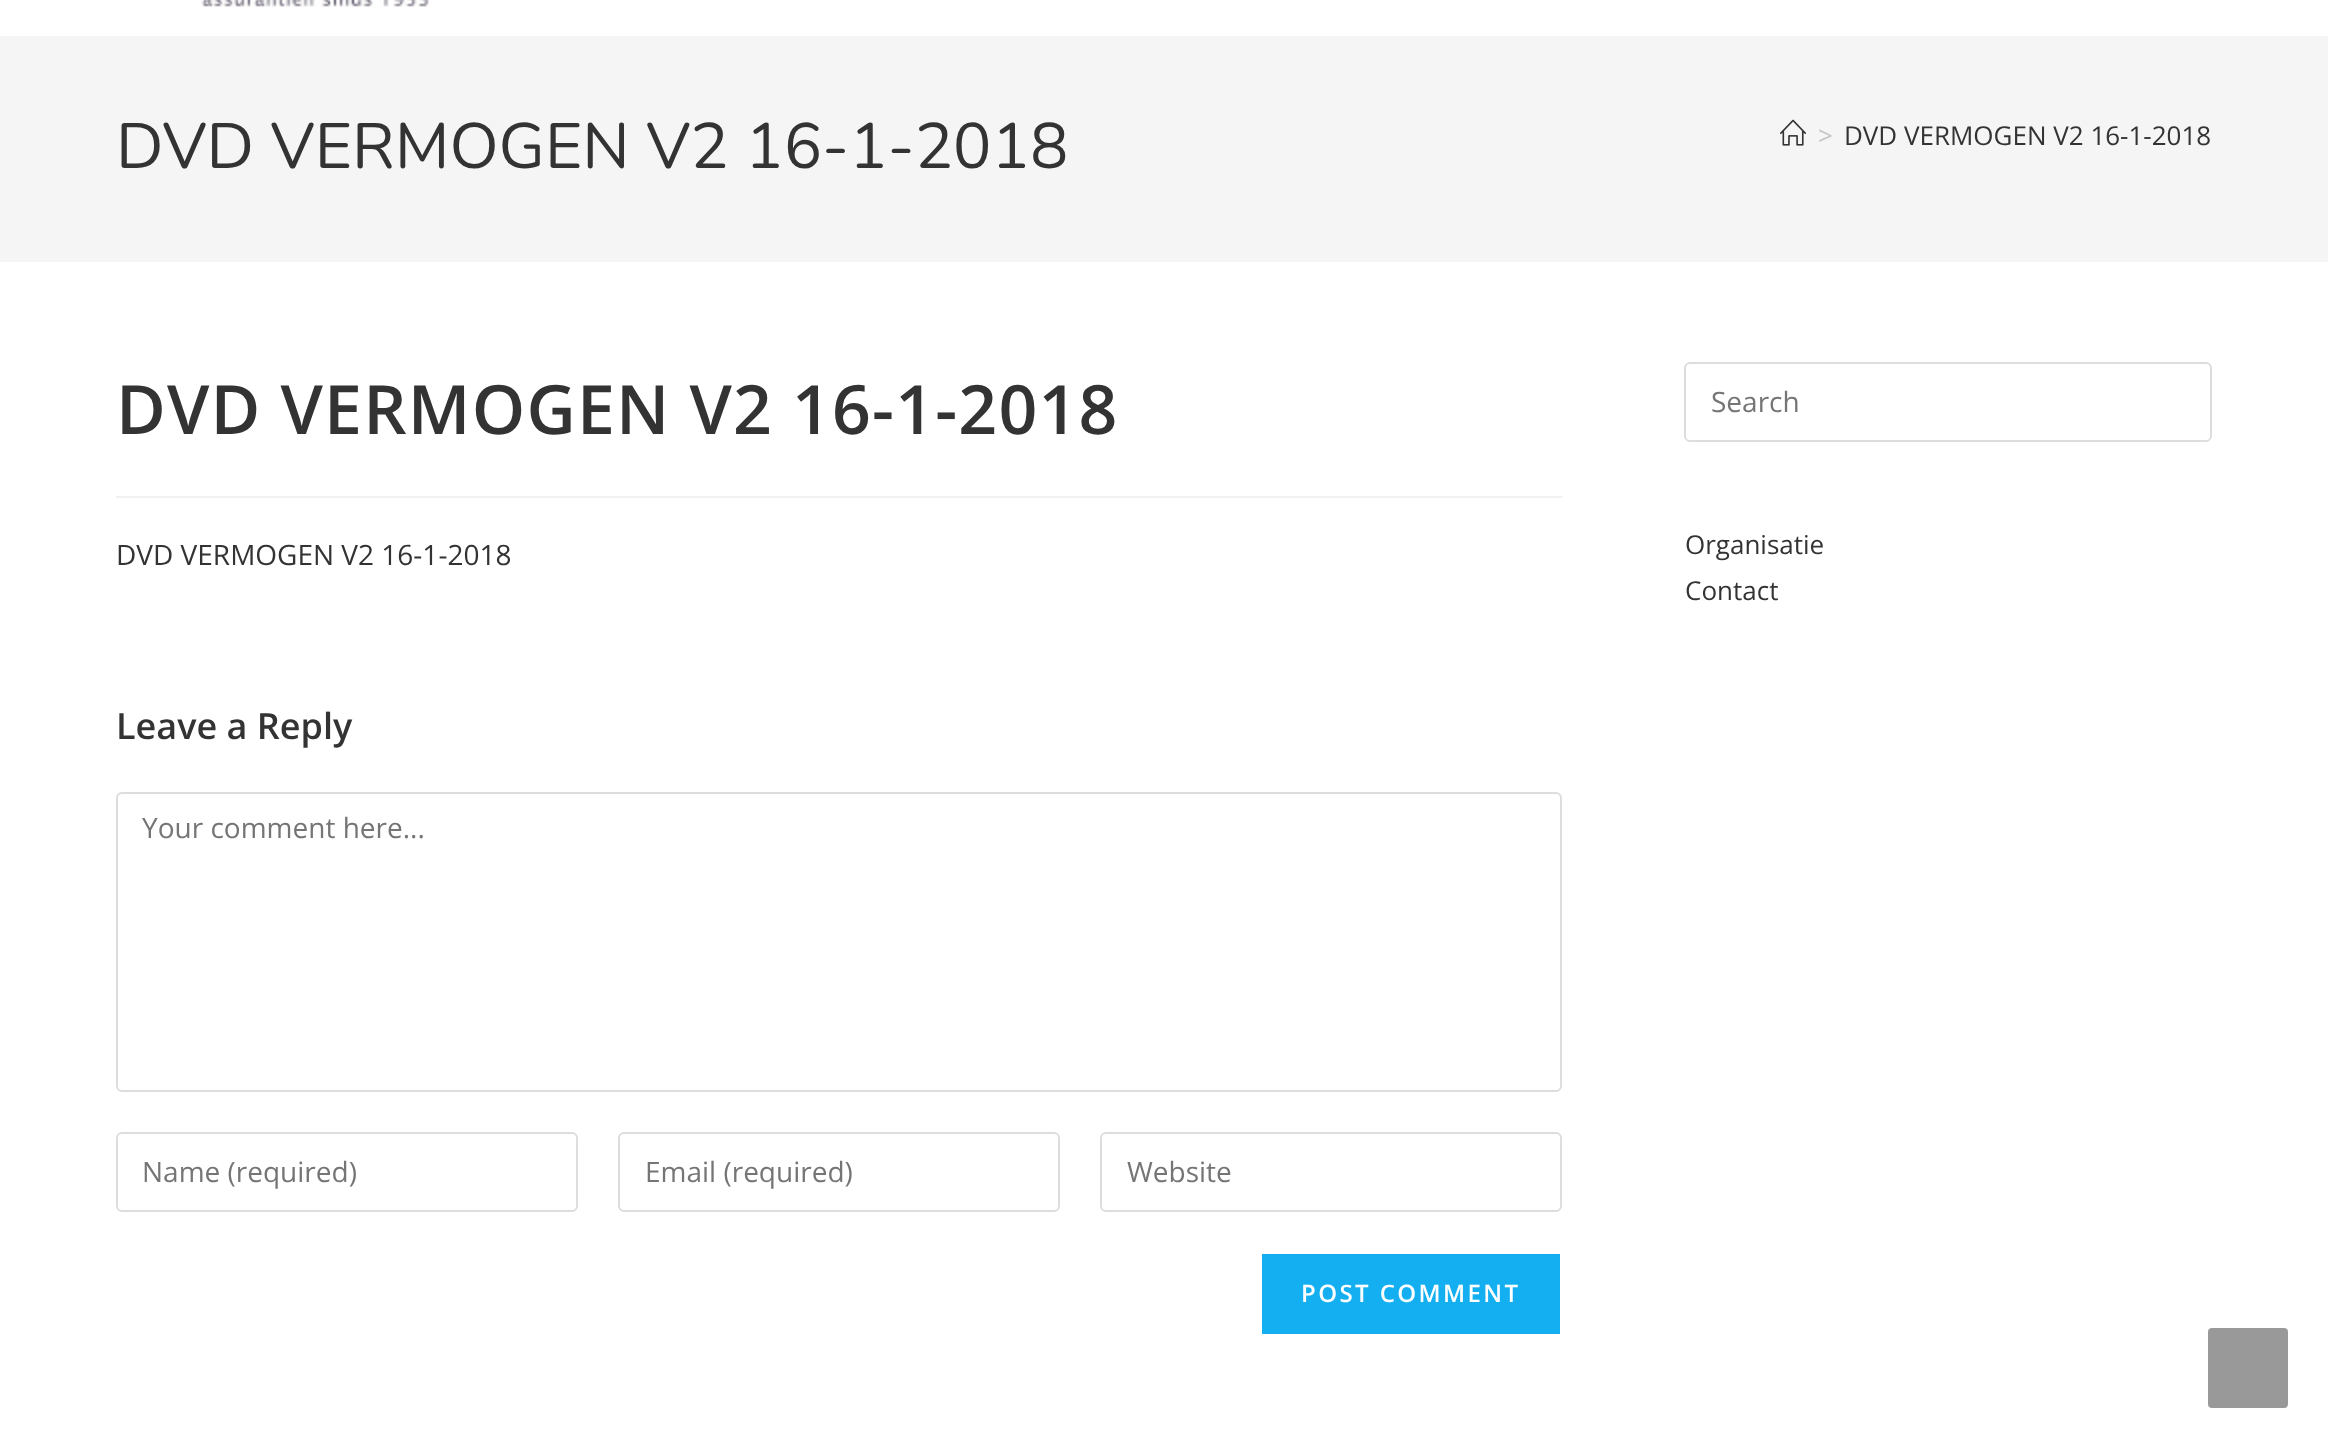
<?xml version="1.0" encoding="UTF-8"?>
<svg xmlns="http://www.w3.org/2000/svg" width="2328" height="1448">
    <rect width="100%" height="100%" fill="#FFFFFF"/>
    <image x="201" y="0" width="228" height="7" href="img_01.png"/>
    <rect x="0" y="36" width="2328" height="226" fill="#F5F5F5"/>
    <text x="116" y="168" font-family="Nunito" font-size="64" fill="#333333">DVD VERMOGEN V2 16-1-2018</text>
    <image x="1780" y="119" width="26" height="27" href="img_02.png"/>
    <text x="1818" y="145" font-family="Open Sans" font-size="26" fill="#C6C6C6">&gt;</text>
    <text x="1844" y="145" font-family="Open Sans" font-size="26" fill="#333333">DVD VERMOGEN V2 16-1-2018</text>
    <rect x="116" y="496" width="1446" height="2" fill="#F1F1F1"/>
    <text x="116" y="434" font-family="Open Sans" font-size="68" font-weight="600" letter-spacing="1.2" fill="#333333">DVD VERMOGEN V2 16-1-2018</text>
    <text x="116" y="565" font-family="Open Sans" font-size="28" fill="#333333">DVD VERMOGEN V2 16-1-2018</text>
    <text x="116" y="739" font-family="Open Sans" font-size="36" font-weight="600" fill="#333333">Leave a Reply</text>
    <rect x="117" y="793" width="1444" height="298" rx="5" fill="none" stroke="#DDDDDD" stroke-width="2"/>
    <text x="142" y="838" font-family="Open Sans" font-size="28" fill="#757575">Your comment here...</text>
    <rect x="117" y="1133" width="460" height="78" rx="5" fill="none" stroke="#DDDDDD" stroke-width="2"/>
    <text x="142" y="1182" font-family="Open Sans" font-size="28" fill="#757575">Name (required)</text>
    <rect x="619" y="1133" width="440" height="78" rx="5" fill="none" stroke="#DDDDDD" stroke-width="2"/>
    <text x="645" y="1182" font-family="Open Sans" font-size="28" fill="#757575">Email (required)</text>
    <rect x="1101" y="1133" width="460" height="78" rx="5" fill="none" stroke="#DDDDDD" stroke-width="2"/>
    <text x="1127" y="1182" font-family="Open Sans" font-size="28" fill="#757575">Website</text>
    <rect x="1262" y="1254" width="298" height="80" fill="#13AFF0"/>
    <text x="1301" y="1302" font-family="Open Sans" font-size="24" font-weight="600" letter-spacing="2.4" fill="#FFFFFF">POST COMMENT</text>
    <rect x="1685" y="363" width="526" height="78" rx="5" fill="none" stroke="#DDDDDD" stroke-width="2"/>
    <text x="1711" y="412" font-family="Open Sans" font-size="28" fill="#757575">Search</text>
    <text font-family="Open Sans" font-size="26" fill="#333333">
        <tspan x="1685" y="554">Organisatie</tspan>
        <tspan x="1685" y="600">Contact</tspan>
    </text>
    <rect x="2208" y="1328" width="80" height="80" rx="4" fill="#999999"/>
</svg>
